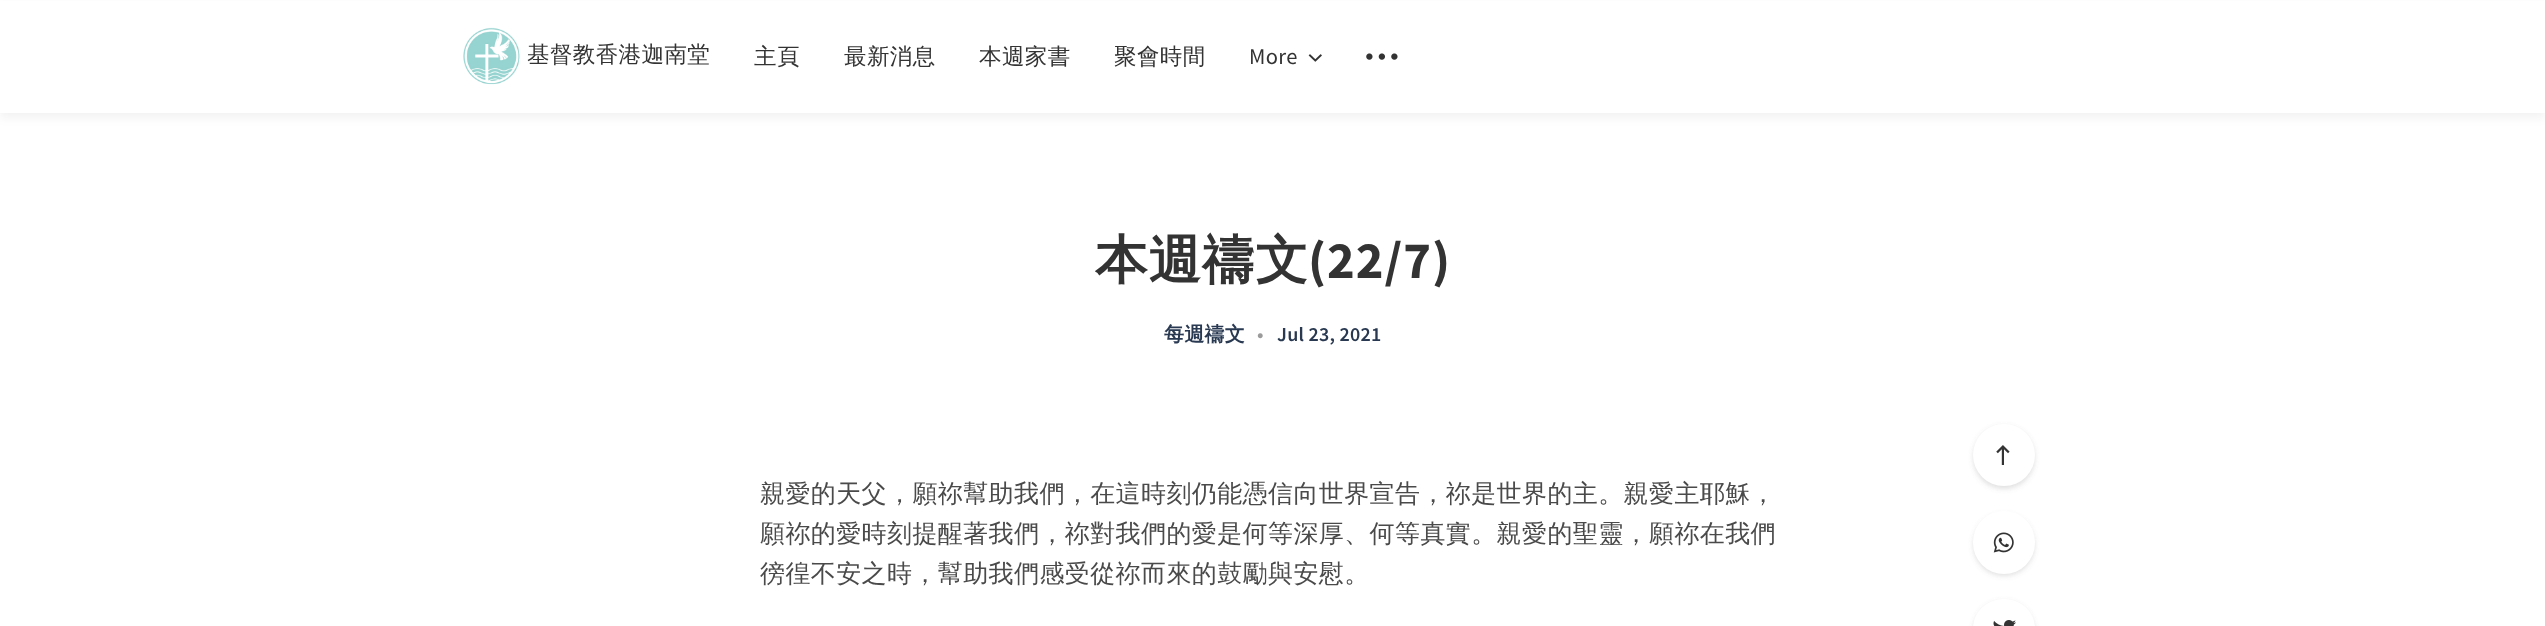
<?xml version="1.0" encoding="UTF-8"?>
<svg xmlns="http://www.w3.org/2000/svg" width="2545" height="626">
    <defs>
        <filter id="blur1" x="-50%" y="-200%" width="200%" height="500%"><feGaussianBlur stdDeviation="5"/></filter>
        <filter id="blur2" x="-50%" y="-200%" width="200%" height="500%"><feGaussianBlur stdDeviation="2.5"/></filter>
    </defs>
    <rect width="100%" height="100%" fill="#FFFFFF"/>
    <rect x="0" y="5" width="2545" height="113" fill="#000000" fill-opacity="0.05" filter="url(#blur1)"/>
    <rect x="0" y="1" width="2545" height="112" fill="#FFFFFF"/>
    <image x="463" y="27" width="57" height="58" href="img_01.png"/>
    <text x="527" y="62" font-family="WenQuanYi Zen Hei" font-size="22.5" font-weight="500" letter-spacing="0.4" fill="#333333">基督教香港迦南堂</text>
    <text x="754" y="64" font-family="WenQuanYi Zen Hei" font-size="22.5" font-weight="500" letter-spacing="0.4" fill="#333333">主頁</text>
    <text x="844" y="64" font-family="WenQuanYi Zen Hei" font-size="22.5" font-weight="500" letter-spacing="0.4" fill="#333333">最新消息</text>
    <text x="979" y="64" font-family="WenQuanYi Zen Hei" font-size="22.5" font-weight="500" letter-spacing="0.4" fill="#333333">本週家書</text>
    <text x="1114" y="64" font-family="WenQuanYi Zen Hei" font-size="22.5" font-weight="500" letter-spacing="0.4" fill="#333333">聚會時間</text>
    <text x="1249" y="64" font-family="Source Sans Pro" font-size="22.5" letter-spacing="0.4" fill="#333333">More</text>
    <image x="1308" y="54" width="14" height="8" href="img_02.png"/>
    <image x="1366" y="53" width="32" height="7" href="img_03.png"/>
    <text x="1095" y="278" font-family="WenQuanYi Zen Hei" font-size="52.5" font-weight="700" letter-spacing="1" fill="#333333">本週禱文</text>
    <text x="1308" y="278" font-family="Source Sans Pro" font-size="52.5" font-weight="700" letter-spacing="1" fill="#333333">(22/7)</text>
    <text x="1164" y="341" font-family="WenQuanYi Zen Hei" font-size="20" font-weight="700" letter-spacing="0.25" fill="#293951">每週禱文</text>
    <text x="1257" y="341" font-family="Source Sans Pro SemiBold" font-size="20" font-weight="600" letter-spacing="0.25" fill="#9B9B9B">•</text>
    <text x="1277" y="341" font-family="Source Sans Pro SemiBold" font-size="20" font-weight="600" letter-spacing="0.25" fill="#293951">Jul 23, 2021</text>
    <text font-family="WenQuanYi Zen Hei" font-size="25" font-weight="500" letter-spacing="0.4" fill="#4A4A4A">
        <tspan x="760" y="502">親愛的天父，願祢幫助我們，在這時刻仍能憑信向世界宣告，祢是世界的主。親愛主耶穌，</tspan>
        <tspan x="760" y="542">願祢的愛時刻提醒著我們，祢對我們的愛是何等深厚、何等真實。親愛的聖靈，願祢在我們</tspan>
        <tspan x="760" y="582">徬徨不安之時，幫助我們感受從祢而來的鼓勵與安慰。</tspan>
    </text>
    <rect x="1973" y="426" width="62" height="63" rx="31" fill="#6C6C6C" fill-opacity="0.2" filter="url(#blur2)"/>
    <circle cx="2004" cy="455" r="31" fill="#FFFFFF"/>
    <image x="1996" y="445" width="14" height="20" href="img_04.png"/>
    <rect x="1973" y="514" width="62" height="62" rx="31" fill="#6C6C6C" fill-opacity="0.2" filter="url(#blur2)"/>
    <rect x="1973" y="511" width="62" height="63" rx="31" fill="#FFFFFF"/>
    <image x="1993" y="532" width="21" height="21" href="img_05.png"/>
    <rect x="1973" y="601" width="62" height="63" rx="31" fill="#6C6C6C" fill-opacity="0.2" filter="url(#blur2)"/>
    <rect x="1973" y="599" width="62" height="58" rx="31" fill="#FFFFFF"/>
    <image x="1993" y="620" width="23" height="6" href="img_06.png"/>
</svg>
